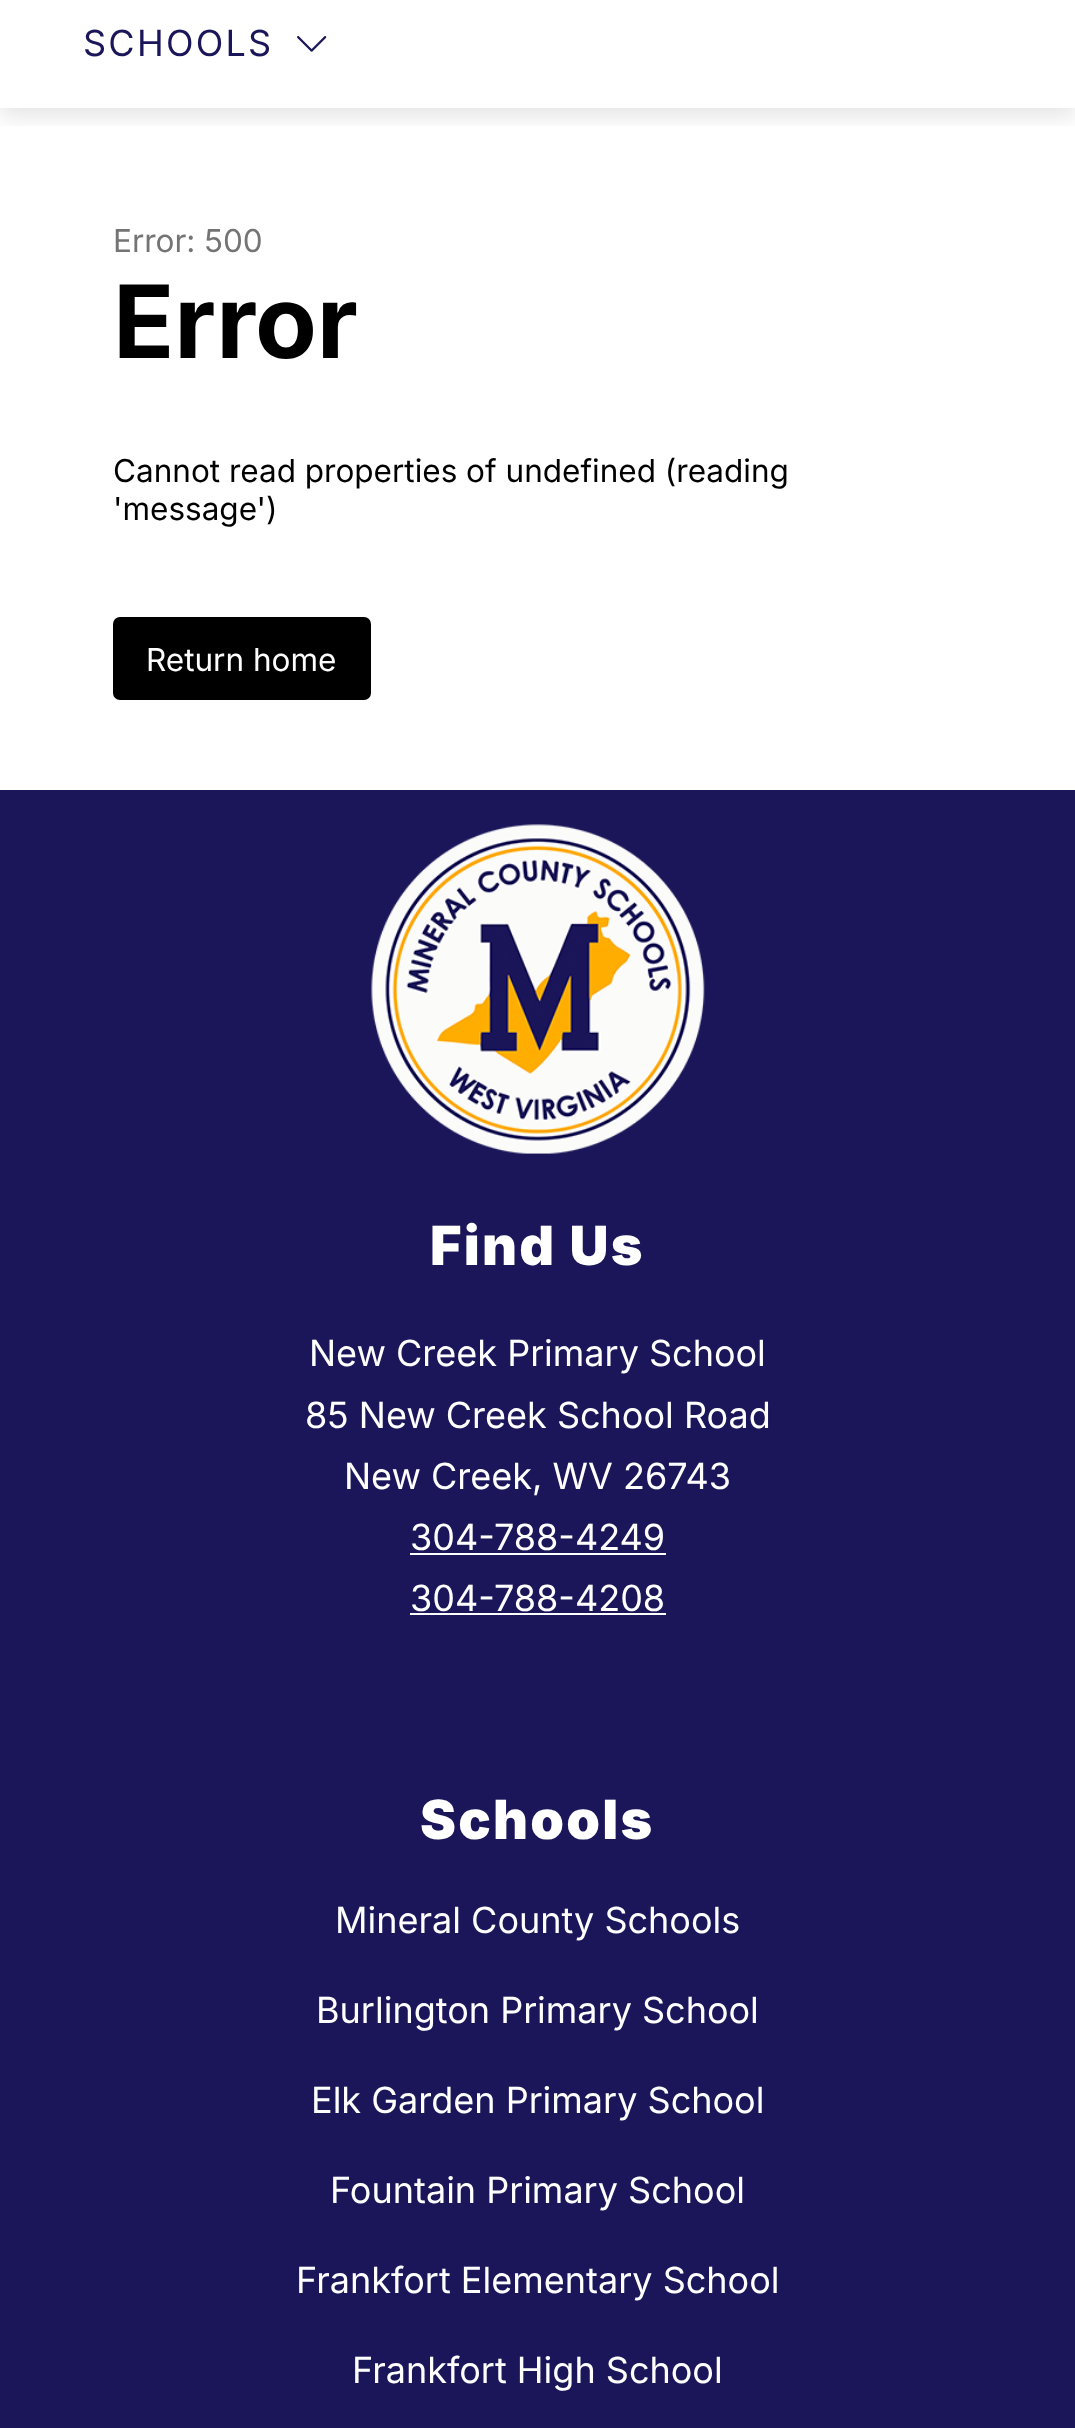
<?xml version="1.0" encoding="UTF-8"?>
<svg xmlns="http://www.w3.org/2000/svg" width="1075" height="2428">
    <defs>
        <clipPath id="clip1"><rect x="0" y="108" width="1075" height="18"/></clipPath>
        <filter id="blur1" x="-50%" y="-200%" width="200%" height="500%"><feGaussianBlur stdDeviation="11"/></filter>
    </defs>
    <rect width="100%" height="100%" fill="#FFFFFF"/>
    <g clip-path="url(#clip1)">
        <rect x="0" y="-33" width="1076" height="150" fill="#000000" fill-opacity="0.1" filter="url(#blur1)"/>
    </g>
    <text x="83" y="56" font-family="Inter" font-size="36" letter-spacing="2.25" fill="#1A1659">SCHOOLS</text>
    <image x="297" y="36" width="30" height="16" href="img_01.png"/>
    <text x="113" y="252" font-family="Inter" font-size="31.5" fill="#747474">Error: 500</text>
    <text x="113" y="358" font-family="Inter" font-size="101" font-weight="700" fill="#000000">Error</text>
    <text font-family="Inter" font-size="31.5" fill="#000000">
        <tspan x="113" y="482">Cannot read properties of undefined (reading</tspan>
        <tspan x="113" y="520">'message')</tspan>
    </text>
    <rect x="113" y="617" width="258" height="83" rx="7" fill="#000000"/>
    <text x="146" y="671" font-family="Inter" font-size="31.5" fill="#FFFFFF">Return home</text>
    <rect x="0" y="790" width="1075" height="1638" fill="#1A1659"/>
    <image x="371" y="824" width="334" height="330" href="img_02.png"/>
    <text x="430" y="1265" font-family="Inter" font-size="54" font-weight="900" letter-spacing="2.25" fill="#FFFFFF">Find Us</text>
    <text x="309" y="1366" font-family="Inter" font-size="36" fill="#FFFFFF">New Creek Primary School</text>
    <text x="305" y="1428" font-family="Inter" font-size="36" fill="#FFFFFF">85 New Creek School Road</text>
    <text x="344" y="1489" font-family="Inter" font-size="36" fill="#FFFFFF">New Creek, WV 26743</text>
    <text x="410" y="1550" font-family="Inter" font-size="36" fill="#FFFFFF">304-788-4249</text>
    <rect x="410" y="1553" width="256" height="2" fill="#FFFFFF"/>
    <text x="410" y="1611" font-family="Inter" font-size="36" fill="#FFFFFF">304-788-4208</text>
    <rect x="410" y="1613" width="256" height="2" fill="#FFFFFF"/>
    <text x="420" y="1839" font-family="Inter" font-size="54" font-weight="900" letter-spacing="2.25" fill="#FFFFFF">Schools</text>
    <text x="335" y="1933" font-family="Inter" font-size="36" fill="#FFFFFF">Mineral County Schools</text>
    <text x="316" y="2023" font-family="Inter" font-size="36" fill="#FFFFFF">Burlington Primary School</text>
    <text x="311" y="2113" font-family="Inter" font-size="36" fill="#FFFFFF">Elk Garden Primary School</text>
    <text x="330" y="2203" font-family="Inter" font-size="36" fill="#FFFFFF">Fountain Primary School</text>
    <text x="296" y="2293" font-family="Inter" font-size="36" fill="#FFFFFF">Frankfort Elementary School</text>
    <text x="352" y="2383" font-family="Inter" font-size="36" fill="#FFFFFF">Frankfort High School</text>
</svg>
